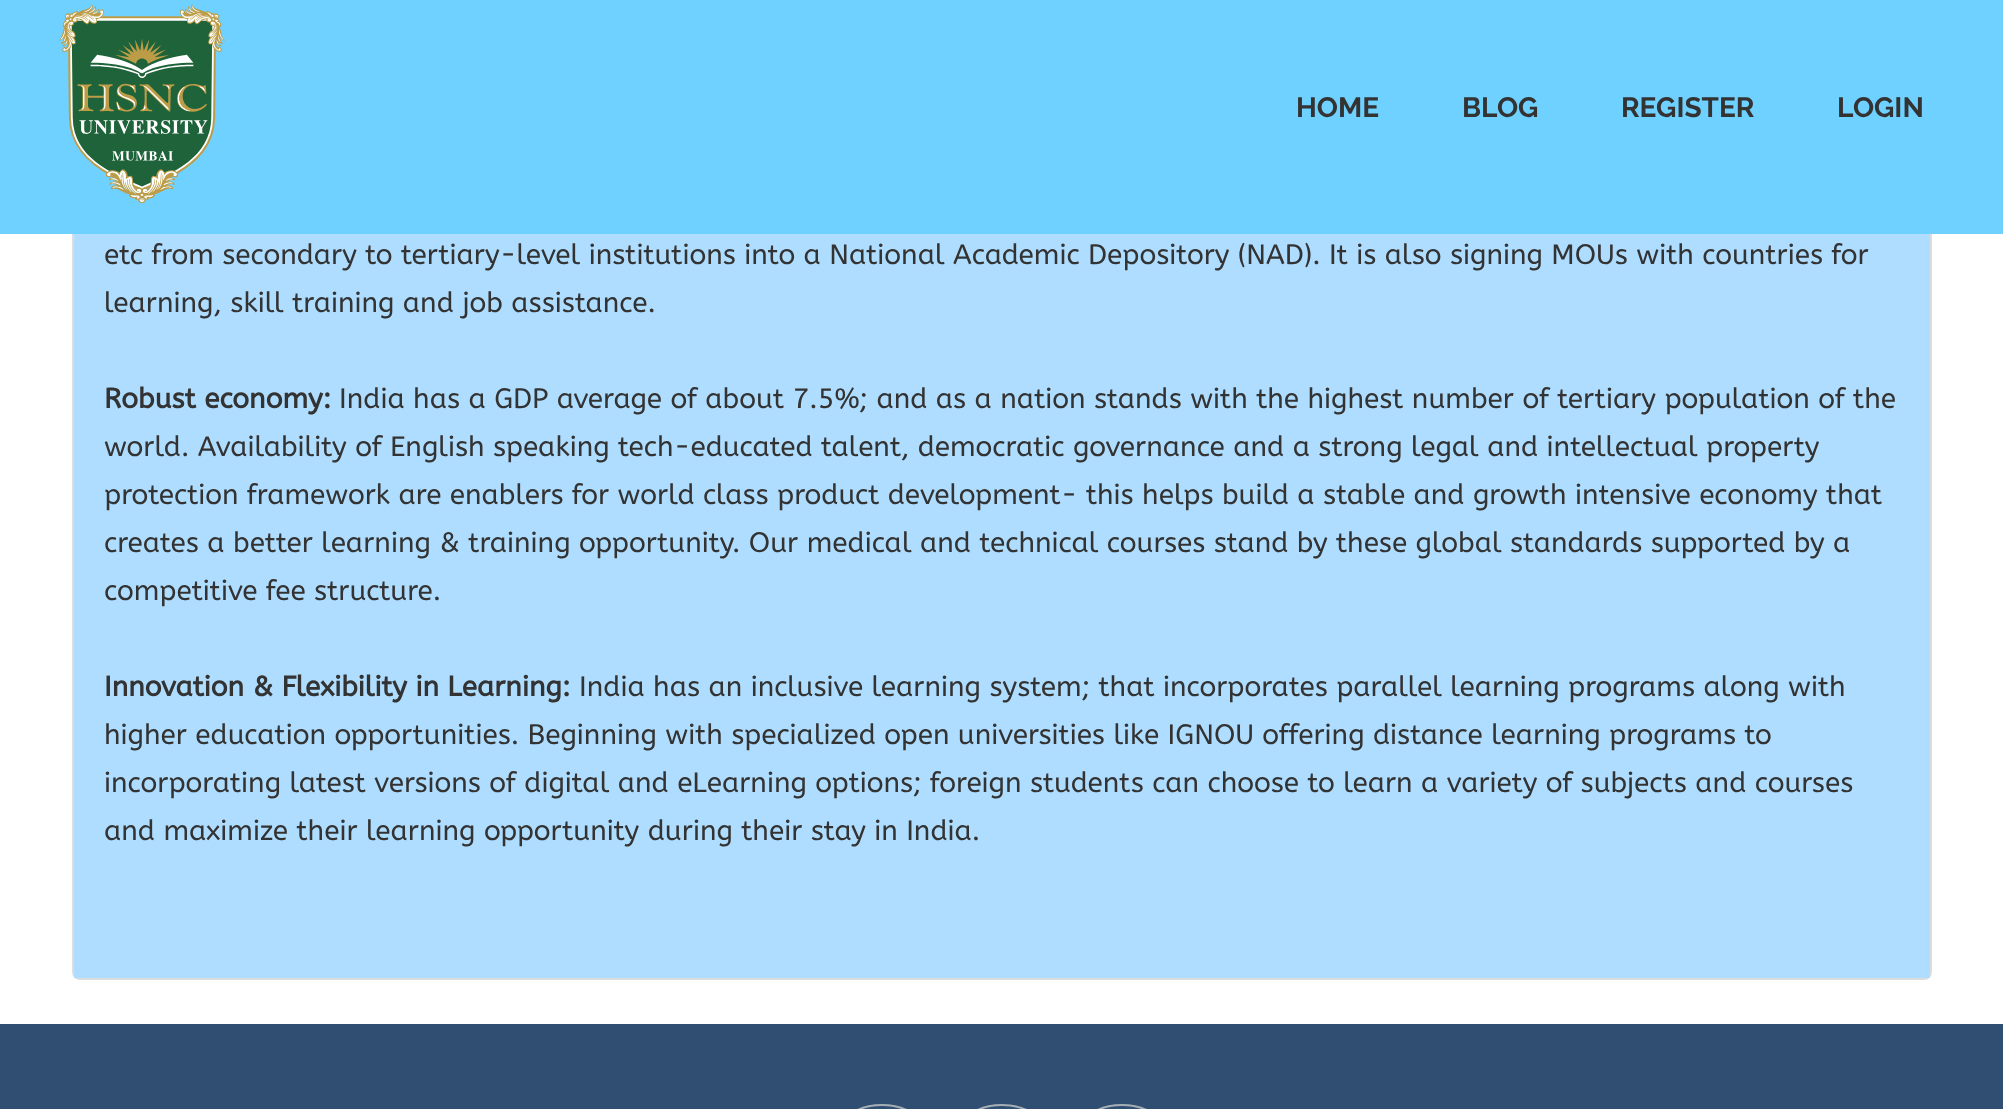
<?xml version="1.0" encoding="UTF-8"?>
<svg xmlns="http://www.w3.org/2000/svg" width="2003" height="1109">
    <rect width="100%" height="100%" fill="#FFFFFF"/>
    <rect x="73" y="-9" width="1858" height="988" rx="7" fill="none" stroke="#DDDDDD" stroke-width="2"/>
    <rect x="0" y="0" width="2003" height="234" fill="#6FD1FF"/>
    <image x="59" y="4" width="166" height="200" href="img_01.png"/>
    <text x="1296" y="117" font-family="Raleway" font-size="28" font-weight="700" fill="#333333">HOME</text>
    <text x="1462" y="117" font-family="Raleway" font-size="28" font-weight="700" fill="#333333">BLOG</text>
    <text x="1621" y="117" font-family="Raleway" font-size="28" font-weight="700" fill="#333333">REGISTER</text>
    <text x="1837" y="117" font-family="Raleway" font-size="28" font-weight="700" fill="#333333">LOGIN</text>
    <rect x="74" y="234" width="1856" height="744" fill="#AFDDFF"/>
    <text font-family="ABeeZee" font-size="28" fill="#333333">
        <tspan x="104" y="264">etc from secondary to tertiary-level institutions into a National Academic Depository (NAD). It is also signing MOUs with countries for</tspan>
        <tspan x="104" y="312">learning, skill training and job assistance.</tspan>
    </text>
    <text x="104" y="408" font-family="ABeeZee" font-size="28" font-weight="700" fill="#333333">Robust economy:</text>
    <text x="339" y="408" font-family="ABeeZee" font-size="28" fill="#333333">India has a GDP average of about 7.5%; and as a nation stands with the highest number of tertiary population of the</text>
    <text font-family="ABeeZee" font-size="28" fill="#333333">
        <tspan x="104" y="456">world. Availability of English speaking tech-educated talent, democratic governance and a strong legal and intellectual property</tspan>
        <tspan x="104" y="504">protection framework are enablers for world class product development- this helps build a stable and growth intensive economy that</tspan>
        <tspan x="104" y="552">creates a better learning &amp; training opportunity. Our medical and technical courses stand by these global standards supported by a</tspan>
        <tspan x="104" y="600">competitive fee structure.</tspan>
    </text>
    <text x="104" y="696" font-family="ABeeZee" font-size="28" font-weight="700" fill="#333333">Innovation &amp; Flexibility in Learning:</text>
    <text x="579" y="696" font-family="ABeeZee" font-size="28" fill="#333333">India has an inclusive learning system; that incorporates parallel learning programs along with</text>
    <text font-family="ABeeZee" font-size="28" fill="#333333">
        <tspan x="104" y="744">higher education opportunities. Beginning with specialized open universities like IGNOU offering distance learning programs to</tspan>
        <tspan x="104" y="792">incorporating latest versions of digital and eLearning options; foreign students can choose to learn a variety of subjects and courses</tspan>
        <tspan x="104" y="840">and maximize their learning opportunity during their stay in India.</tspan>
    </text>
    <rect x="0" y="1024" width="2003" height="85" fill="#2F4E71"/>
    <rect x="843" y="1105" width="78" height="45" rx="39" fill="none" stroke="#A5ADB5" stroke-width="2"/>
    <rect x="963" y="1105" width="78" height="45" rx="39" fill="none" stroke="#A5ADB5" stroke-width="2"/>
    <rect x="1083" y="1105" width="78" height="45" rx="39" fill="none" stroke="#A5ADB5" stroke-width="2"/>
</svg>
